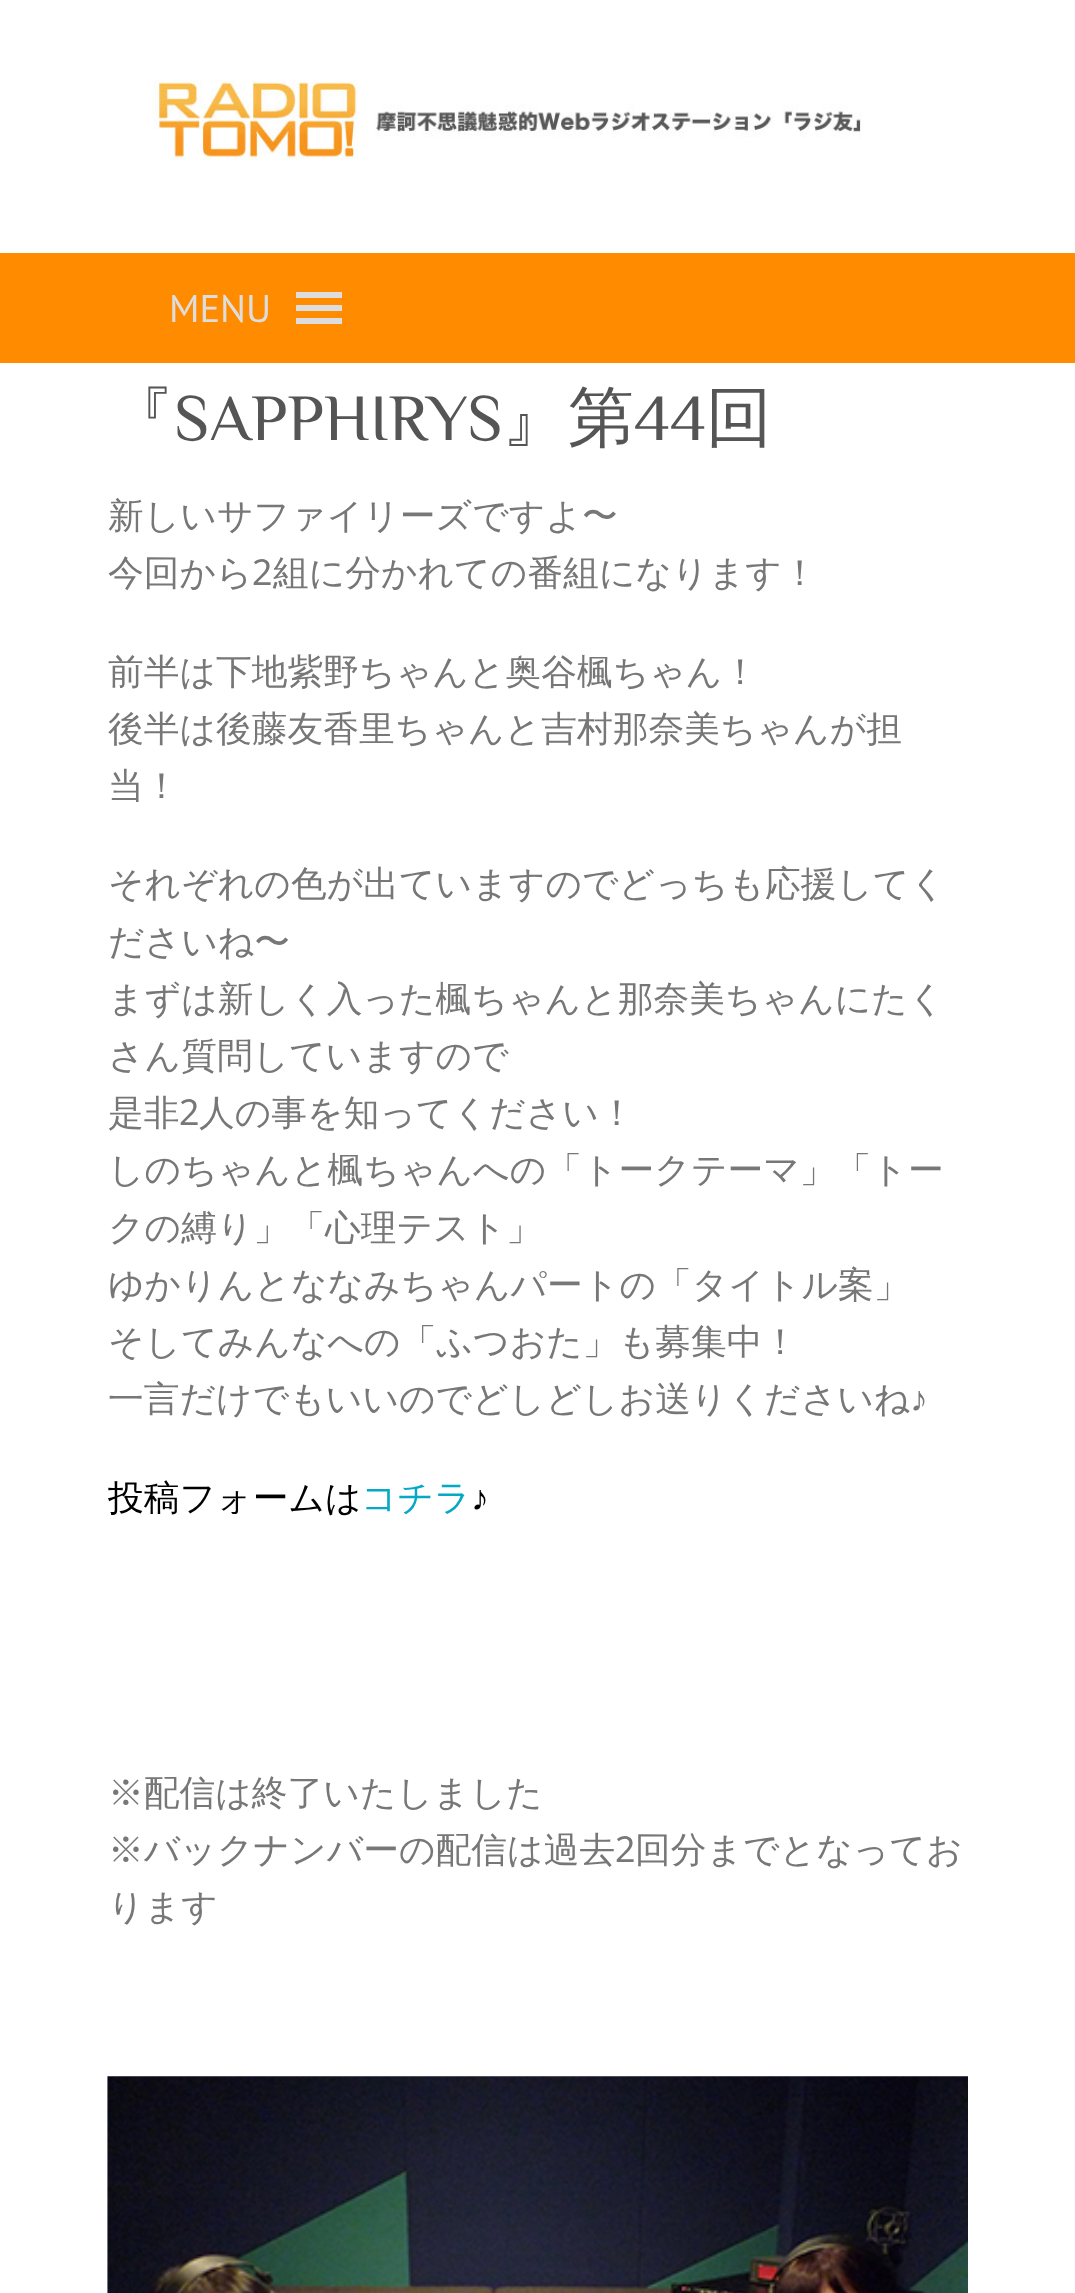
<?xml version="1.0" encoding="UTF-8"?>
<svg xmlns="http://www.w3.org/2000/svg" width="1075" height="2293">
    <rect width="100%" height="100%" fill="#FFFFFF"/>
    <image x="154" y="80" width="708" height="80" href="img_01.png"/>
    <rect x="0" y="253" width="1075" height="110" fill="#FF8C00"/>
    <text x="169" y="322" font-family="PT Sans" font-size="38.5" fill="#DDDDDD">MENU</text>
    <path d="M 296 324 H 342 V 318 H 296 Z M 296 292 V 298 H 342 V 292 Z M 296 311 H 342 V 305 H 296 Z" fill="#DDDDDD"/>
    <text x="108" y="440" font-family="WenQuanYi Zen Hei" font-size="66" font-weight="500" fill="#555555">『</text>
    <text x="174" y="440" font-family="Philosopher" font-size="66" fill="#555555">SAPPHIRYS</text>
    <text x="502" y="440" font-family="WenQuanYi Zen Hei" font-size="66" font-weight="500" fill="#555555">』第</text>
    <text x="634" y="440" font-family="Philosopher" font-size="66" fill="#555555">44</text>
    <text x="706" y="440" font-family="WenQuanYi Zen Hei" font-size="66" font-weight="500" fill="#555555">回</text>
    <text font-family="WenQuanYi Zen Hei" font-size="35.75" font-weight="500" fill="#777777">
        <tspan x="108" y="528">新しいサファイリーズですよ〜</tspan>
        <tspan x="108" y="585">今回から</tspan>
    </text>
    <text x="252" y="585" font-family="Noto Sans" font-size="35.75" fill="#777777">2</text>
    <text x="273" y="585" font-family="WenQuanYi Zen Hei" font-size="35.75" font-weight="500" fill="#777777">組に分かれての番組になります！</text>
    <text font-family="WenQuanYi Zen Hei" font-size="35.75" font-weight="500" fill="#777777">
        <tspan x="108" y="684">前半は下地紫野ちゃんと奥谷楓ちゃん！</tspan>
        <tspan x="108" y="741">後半は後藤友香里ちゃんと吉村那奈美ちゃんが担</tspan>
        <tspan x="108" y="798">当！</tspan>
    </text>
    <text font-family="WenQuanYi Zen Hei" font-size="35.75" font-weight="500" fill="#777777">
        <tspan x="108" y="896">それぞれの色が出ていますのでどっちも応援してく</tspan>
        <tspan x="108" y="954">ださいね〜</tspan>
        <tspan x="108" y="1011">まずは新しく入った楓ちゃんと那奈美ちゃんにたく</tspan>
        <tspan x="108" y="1068">さん質問していますので</tspan>
        <tspan x="108" y="1125">是非</tspan>
    </text>
    <text x="179" y="1125" font-family="Noto Sans" font-size="35.75" fill="#777777">2</text>
    <text x="199" y="1125" font-family="WenQuanYi Zen Hei" font-size="35.75" font-weight="500" fill="#777777">人の事を知ってください！</text>
    <text font-family="WenQuanYi Zen Hei" font-size="35.75" font-weight="500" fill="#777777">
        <tspan x="108" y="1182">しのちゃんと楓ちゃんへの「トークテーマ」「トー</tspan>
        <tspan x="108" y="1240">クの縛り」「心理テスト」</tspan>
        <tspan x="108" y="1297">ゆかりんとななみちゃんパートの「タイトル案」</tspan>
        <tspan x="108" y="1354">そしてみんなへの「ふつおた」も募集中！</tspan>
        <tspan x="108" y="1411">一言だけでもいいのでどしどしお送りくださいね</tspan>
    </text>
    <text x="910" y="1411" font-family="Liberation Sans" font-size="35.75" fill="#777777">♪</text>
    <text x="108" y="1510" font-family="WenQuanYi Zen Hei" font-size="35.75" font-weight="500" fill="#000000">投稿フォームは</text>
    <text x="361" y="1510" font-family="WenQuanYi Zen Hei" font-size="35.75" font-weight="500" fill="#05A9C5">コチラ</text>
    <text x="471" y="1510" font-family="Liberation Sans" font-size="35.75" fill="#000000">♪</text>
    <text font-family="WenQuanYi Zen Hei" font-size="35.75" font-weight="500" fill="#777777">
        <tspan x="108" y="1805">※配信は終了いたしました</tspan>
        <tspan x="108" y="1862">※バックナンバーの配信は過去</tspan>
    </text>
    <text x="615" y="1862" font-family="Noto Sans" font-size="35.75" fill="#777777">2</text>
    <text x="635" y="1862" font-family="WenQuanYi Zen Hei" font-size="35.75" font-weight="500" fill="#777777">回分までとなってお</text>
    <text x="108" y="1919" font-family="WenQuanYi Zen Hei" font-size="35.75" font-weight="500" fill="#777777">ります</text>
    <image x="107" y="2076" width="861" height="217" href="img_02.png"/>
</svg>
